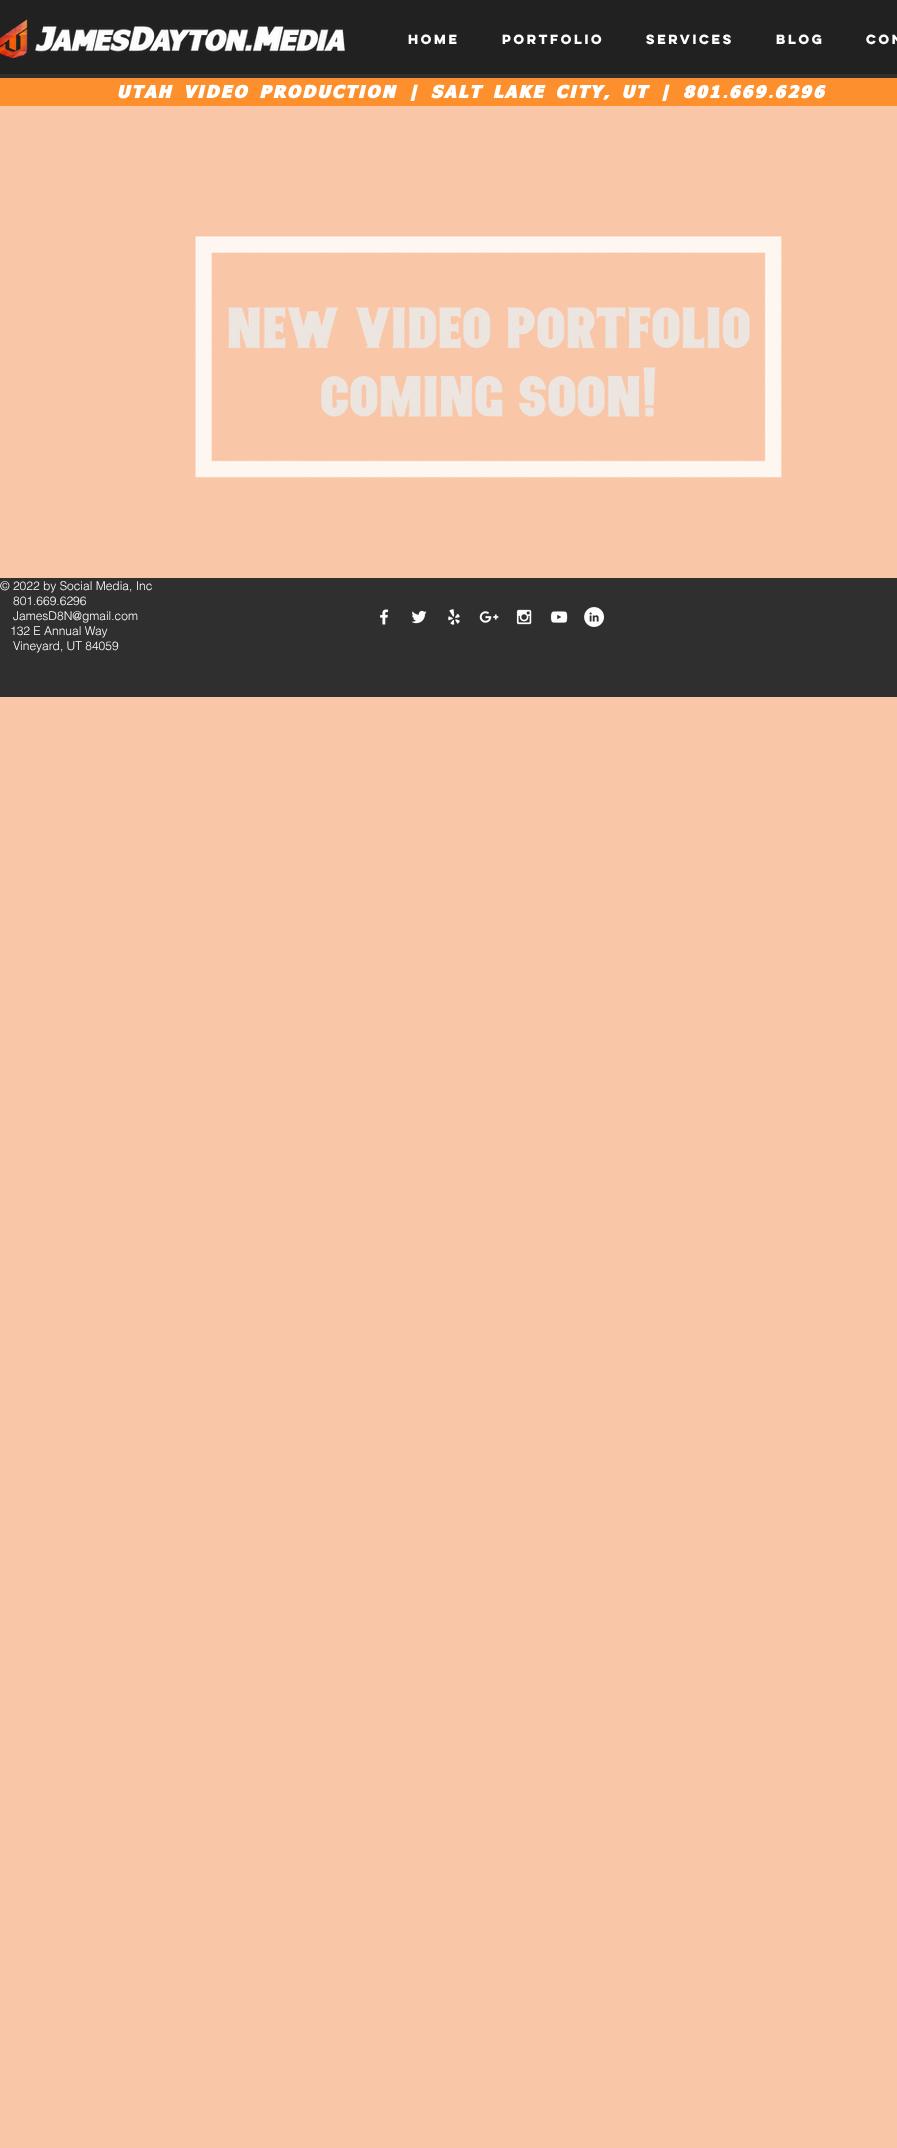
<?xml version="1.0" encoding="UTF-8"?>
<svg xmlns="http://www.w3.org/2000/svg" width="897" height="2148">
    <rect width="100%" height="100%" fill="#F9C7A7"/>
    <rect x="0" y="0" width="897" height="74" fill="#212121"/>
    <rect x="0" y="74" width="897" height="4" fill="#2F2F2F"/>
    <image x="0" y="19" width="345" height="41" href="img_01.png"/>
    <text x="408" y="44" font-family="'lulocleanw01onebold'" font-size="12" font-weight="700" fill="#FFFFFF">HOME</text>
    <text x="502" y="44" font-family="'lulocleanw01onebold'" font-size="12" font-weight="700" fill="#FFFFFF">PORTFOLIO</text>
    <text x="646" y="44" font-family="'lulocleanw01onebold'" font-size="12" font-weight="700" fill="#FFFFFF">SERVICES</text>
    <text x="776" y="44" font-family="'lulocleanw01onebold'" font-size="12" font-weight="700" fill="#FFFFFF">BLOG</text>
    <text x="866" y="44" font-family="'lulocleanw01onebold'" font-size="12" font-weight="700" fill="#FFFFFF">CON</text>
    <rect x="0" y="78" width="897" height="28" fill="#FD902C"/>
    <text x="117" y="98" font-family="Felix" font-size="18" font-weight="900" letter-spacing="1.8" fill="#FFFFFF">UTAH VIDEO PRODUCTION | SALT LAKE CITY, UT | 801.669.6296</text>
    <image x="195" y="236" width="587" height="242" href="img_02.png"/>
    <rect x="0" y="578" width="897" height="119" fill="#2F2F2F"/>
    <text x="0" y="590" font-family="helvetica" font-size="12" font-weight="300" fill="#FFFFFF">© 2022 by Social Media, Inc</text>
    <text font-family="helvetica" font-size="12" font-weight="300" fill="#FFFFFF">
        <tspan x="13" y="605">801.669.6296</tspan>
        <tspan x="13" y="620">JamesD8N@gmail.com</tspan>
    </text>
    <text x="10" y="635" font-family="helvetica" font-size="12" font-weight="300" fill="#FFFFFF">132 E Annual Way</text>
    <text x="13" y="650" font-family="helvetica" font-size="12" font-weight="300" fill="#FFFFFF">Vineyard, UT 84059</text>
    <image x="380" y="609" width="9" height="16" href="img_03.png"/>
    <image x="411" y="610" width="16" height="14" href="img_04.png"/>
    <image x="448" y="609" width="12" height="16" href="img_05.png"/>
    <image x="479" y="611" width="20" height="12" href="img_06.png"/>
    <image x="516" y="609" width="16" height="16" href="img_07.png"/>
    <image x="550" y="611" width="18" height="12" href="img_08.png"/>
    <image x="584" y="607" width="20" height="20" href="img_09.png"/>
</svg>
